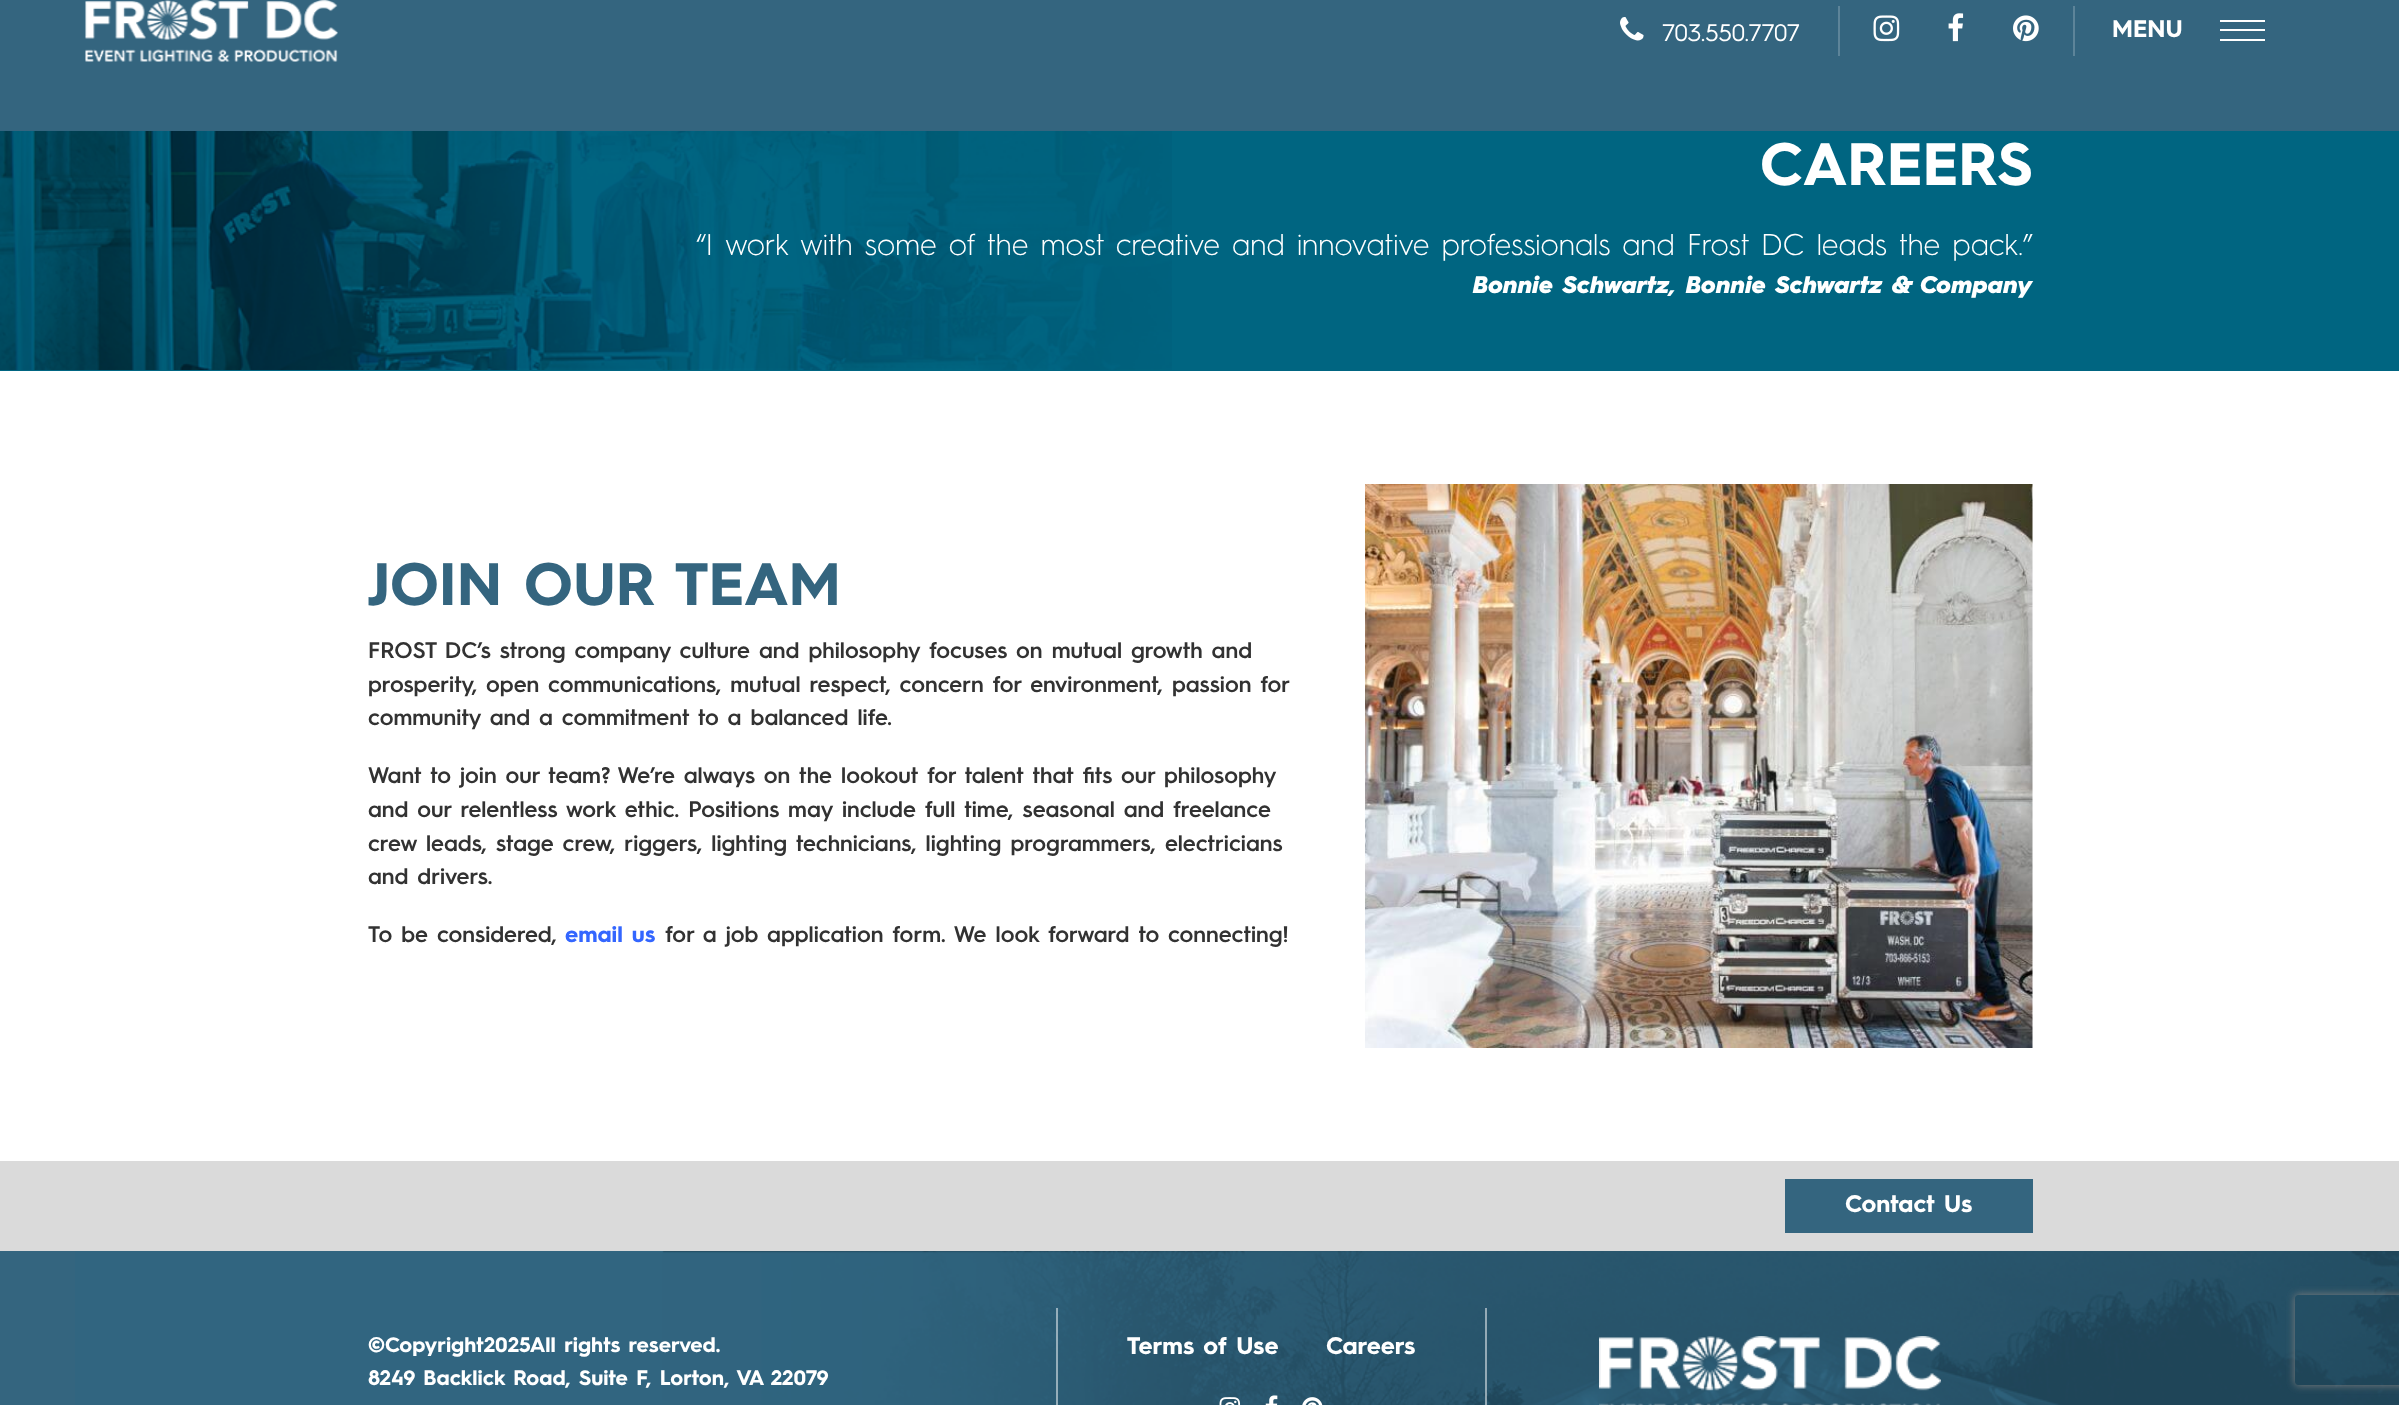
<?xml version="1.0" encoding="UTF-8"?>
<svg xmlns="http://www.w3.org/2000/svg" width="2399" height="1405">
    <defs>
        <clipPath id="clip1"><path d="M 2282 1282 H 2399 V 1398 H 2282 Z M 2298 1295 H 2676 C 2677.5 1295 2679 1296.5 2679 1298 V 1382 C 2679 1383.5 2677.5 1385 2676 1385 H 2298 C 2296.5 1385 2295 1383.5 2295 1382 V 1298 C 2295 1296.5 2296.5 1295 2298 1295 Z" clip-rule="evenodd"/></clipPath>
        <filter id="blur1" x="-50%" y="-200%" width="200%" height="500%"><feGaussianBlur stdDeviation="4"/></filter>
    </defs>
    <rect width="100%" height="100%" fill="#FFFFFF"/>
    <rect x="0" y="0" width="2399" height="131" fill="#34657F"/>
    <image x="85" y="0" width="253" height="62" href="img_01.png"/>
    <image x="1620" y="17" width="24" height="24" href="img_02.png"/>
    <text x="1662" y="41" font-family="'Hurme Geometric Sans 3'" font-size="24" fill="#FFFFFF">703.550.7707</text>
    <rect x="1838" y="6" width="2" height="50" fill="#5D8499"/>
    <image x="1873" y="15" width="27" height="27" href="img_03.png"/>
    <image x="1948" y="13" width="16" height="29" href="img_04.png"/>
    <image x="2013" y="15" width="26" height="27" href="img_05.png"/>
    <rect x="2073" y="6" width="2" height="50" fill="#5D8499"/>
    <text x="2112" y="37" font-family="'Hurme Geometric Sans 3'" font-size="24" font-weight="700" fill="#FFFFFF">MENU</text>
    <rect x="2220" y="20" width="45" height="2" fill="#FFFFFF"/>
    <rect x="2220" y="29" width="45" height="2" fill="#FFFFFF"/>
    <rect x="2220" y="39" width="45" height="2" fill="#FFFFFF"/>
    <rect x="0" y="131" width="2399" height="240" fill="#006581"/>
    <image x="0" y="131" width="1172" height="239" href="img_06.png"/>
    <text x="1760" y="185" font-family="'Hurme Geometric Sans 3'" font-size="60" font-weight="700" fill="#FFFFFF">CAREERS</text>
    <text x="696" y="255" font-family="'Hurme Geometric Sans 3'" font-size="30" font-weight="300" fill="#FFFFFF">“I work with some of the most creative and innovative professionals and Frost DC leads the pack.”</text>
    <text x="1473" y="293" font-family="'Hurme Geometric Sans 3'" font-size="24" font-weight="900" font-style="italic" fill="#FFFFFF">Bonnie Schwartz, Bonnie Schwartz &amp; Company</text>
    <text x="368" y="605" font-family="'Hurme Geometric Sans 3'" font-size="60" font-weight="700" fill="#34657F">JOIN OUR TEAM</text>
    <text font-family="'Hurme Geometric Sans 3'" font-size="22.5" font-weight="600" fill="#323232">
        <tspan x="368" y="658">FROST DC’s strong company culture and philosophy focuses on mutual growth and</tspan>
        <tspan x="368" y="692" word-spacing="-0.1">prosperity, open communications, mutual respect, concern for environment, passion for</tspan>
        <tspan x="368" y="725">community and a commitment to a balanced life.</tspan>
    </text>
    <text font-family="'Hurme Geometric Sans 3'" font-size="22.5" font-weight="600" fill="#323232">
        <tspan x="368" y="783">Want to join our team? We’re always on the lookout for talent that fits our philosophy</tspan>
        <tspan x="368" y="817">and our relentless work ethic. Positions may include full time, seasonal and freelance</tspan>
        <tspan x="368" y="851">crew leads, stage crew, riggers, lighting technicians, lighting programmers, electricians</tspan>
        <tspan x="368" y="884">and drivers.</tspan>
    </text>
    <text x="368" y="942" font-family="'Hurme Geometric Sans 3'" font-size="22.5" font-weight="600" fill="#323232">To be considered,</text>
    <text x="565" y="942" font-family="'Hurme Geometric Sans 3'" font-size="22.5" font-weight="700" fill="#3366FF">email us</text>
    <text x="665" y="942" font-family="'Hurme Geometric Sans 3'" font-size="22.5" font-weight="600" fill="#323232">for a job application form. We look forward to connecting!</text>
    <image x="1365" y="484" width="668" height="564" href="img_07.png"/>
    <rect x="0" y="1161" width="2399" height="90" fill="#DADADA"/>
    <rect x="1785" y="1179" width="248" height="54" fill="#34657F"/>
    <text x="1845" y="1212" font-family="'Hurme Geometric Sans 3'" font-size="24" font-weight="700" fill="#FFFFFF">Contact Us</text>
    <rect x="0" y="1251" width="75" height="154" fill="#34657F"/>
    <image x="75" y="1251" width="2324" height="154" href="img_08.png"/>
    <text x="368" y="1352" font-family="'Hurme Geometric Sans 3'" font-size="21" font-weight="700" fill="#FFFFFF">©Copyright2025All rights reserved.</text>
    <rect x="1056" y="1308" width="2" height="97" fill="#FFFFFF" fill-opacity="0.5"/>
    <text x="368" y="1385" font-family="'Hurme Geometric Sans 3'" font-size="21" font-weight="700" fill="#FFFFFF">8249 Backlick Road, Suite F, Lorton, VA 22079</text>
    <text x="1127" y="1354" font-family="'Hurme Geometric Sans 3'" font-size="24" font-weight="700" fill="#FFFFFF">Terms of Use</text>
    <text x="1326" y="1354" font-family="'Hurme Geometric Sans 3'" font-size="24" font-weight="700" fill="#FFFFFF">Careers</text>
    <image x="1219" y="1397" width="22" height="8" href="img_09.png"/>
    <image x="1265" y="1395" width="13" height="10" href="img_10.png"/>
    <image x="1302" y="1397" width="21" height="8" href="img_11.png"/>
    <rect x="1485" y="1308" width="2" height="97" fill="#FFFFFF" fill-opacity="0.5"/>
    <image x="1599" y="1336" width="342" height="69" href="img_12.png"/>
    <g clip-path="url(#clip1)">
        <rect x="2295" y="1295" width="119" height="90" rx="3" fill="#808080" filter="url(#blur1)"/>
    </g>
</svg>
